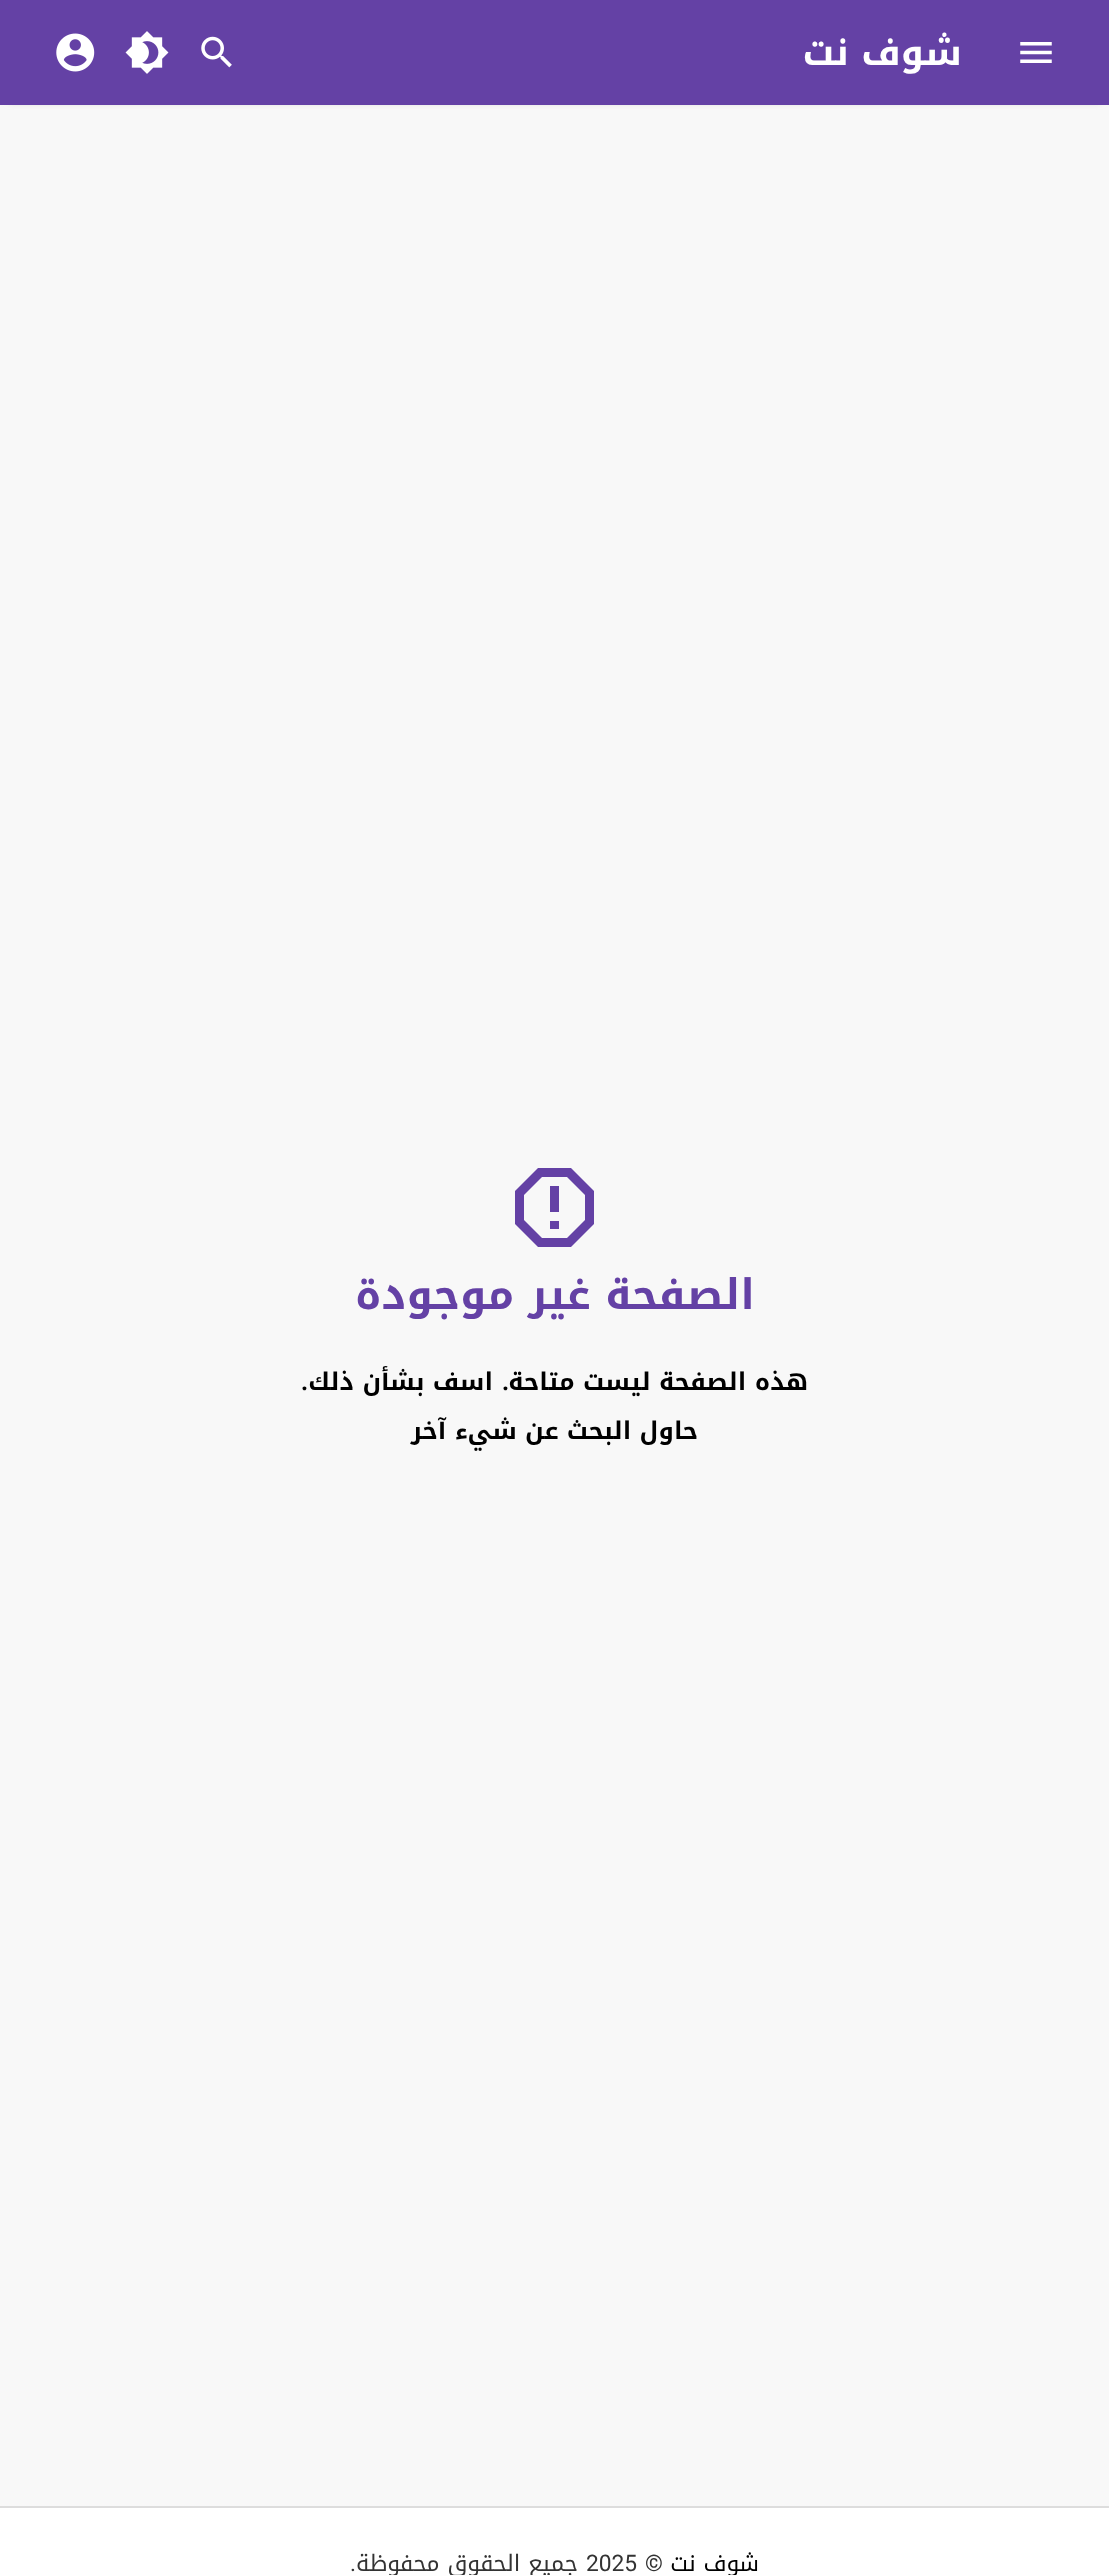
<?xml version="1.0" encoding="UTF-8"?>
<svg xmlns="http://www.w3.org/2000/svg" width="1109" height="2575">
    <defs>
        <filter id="blur1" x="-50%" y="-200%" width="200%" height="500%"><feGaussianBlur stdDeviation="4.5"/></filter>
    </defs>
    <rect width="100%" height="100%" fill="#F8F8F8"/>
    <rect x="9" y="12" width="1092" height="88" fill="#999999" filter="url(#blur1)"/>
    <rect x="0" y="0" width="1109" height="105" fill="#6441A5"/>
    <image x="1020" y="42" width="32" height="21" href="img_01.png"/>
    <text x="962" y="65" font-family="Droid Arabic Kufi" font-size="36.75" font-weight="700" direction="rtl" fill="#FFFFFF">شوف نت</text>
    <image x="201" y="36" width="31" height="32" href="img_02.png"/>
    <image x="125" y="31" width="44" height="43" href="img_03.png"/>
    <image x="56" y="33" width="39" height="39" href="img_04.png"/>
    <path d="M 538 1168 L 515 1191 V 1224 L 538 1247 H 571 L 594 1224 V 1191 L 571 1168 M 542 1177 H 567 L 585 1195 V 1220 L 567 1238 H 542 L 524 1220 V 1195 M 550 1221 H 559 V 1229 H 550 V 1221 M 550 1186 H 559 V 1212 H 550 V 1186" fill="#6441A5"/>
    <text x="755" y="1309" font-family="Droid Arabic Kufi" font-size="42" font-weight="700" direction="rtl" fill="#6441A5">الصفحة غير موجودة</text>
    <text x="808" y="1390" font-family="Droid Arabic Kufi" font-size="24.5" font-weight="700" direction="rtl" fill="#000000">هذه الصفحة ليست متاحة</text>
    <text x="509" y="1390" font-family="Roboto" font-size="24.5" font-weight="700" direction="rtl" fill="#000000">.</text>
    <text x="493" y="1390" font-family="Droid Arabic Kufi" font-size="24.5" font-weight="700" direction="rtl" fill="#000000">اسف بشأن ذلك</text>
    <text x="308" y="1390" font-family="Roboto" font-size="24.5" font-weight="700" direction="rtl" fill="#000000">.</text>
    <text x="698" y="1439" font-family="Droid Arabic Kufi" font-size="24.5" font-weight="700" direction="rtl" fill="#000000">حاول البحث عن شيء آخر</text>
    <rect x="0" y="2508" width="1109" height="67" fill="#FFFFFF"/>
    <rect x="0" y="2506" width="1109" height="2" fill="#DDDDDD"/>
    <text x="759" y="2571" font-family="Droid Arabic Kufi" font-size="22.75" direction="rtl" fill="#000000">شوف نت</text>
    <text x="645" y="2571" font-family="Roboto" font-size="22.75" fill="#333333">©</text>
    <text x="586" y="2571" font-family="Roboto" font-size="22.75" fill="#333333">2025</text>
    <text x="578" y="2571" font-family="Droid Arabic Kufi" font-size="22.75" direction="rtl" fill="#333333">جميع الحقوق محفوظة</text>
    <text x="356" y="2571" font-family="Roboto" font-size="22.75" direction="rtl" fill="#333333">.</text>
</svg>
